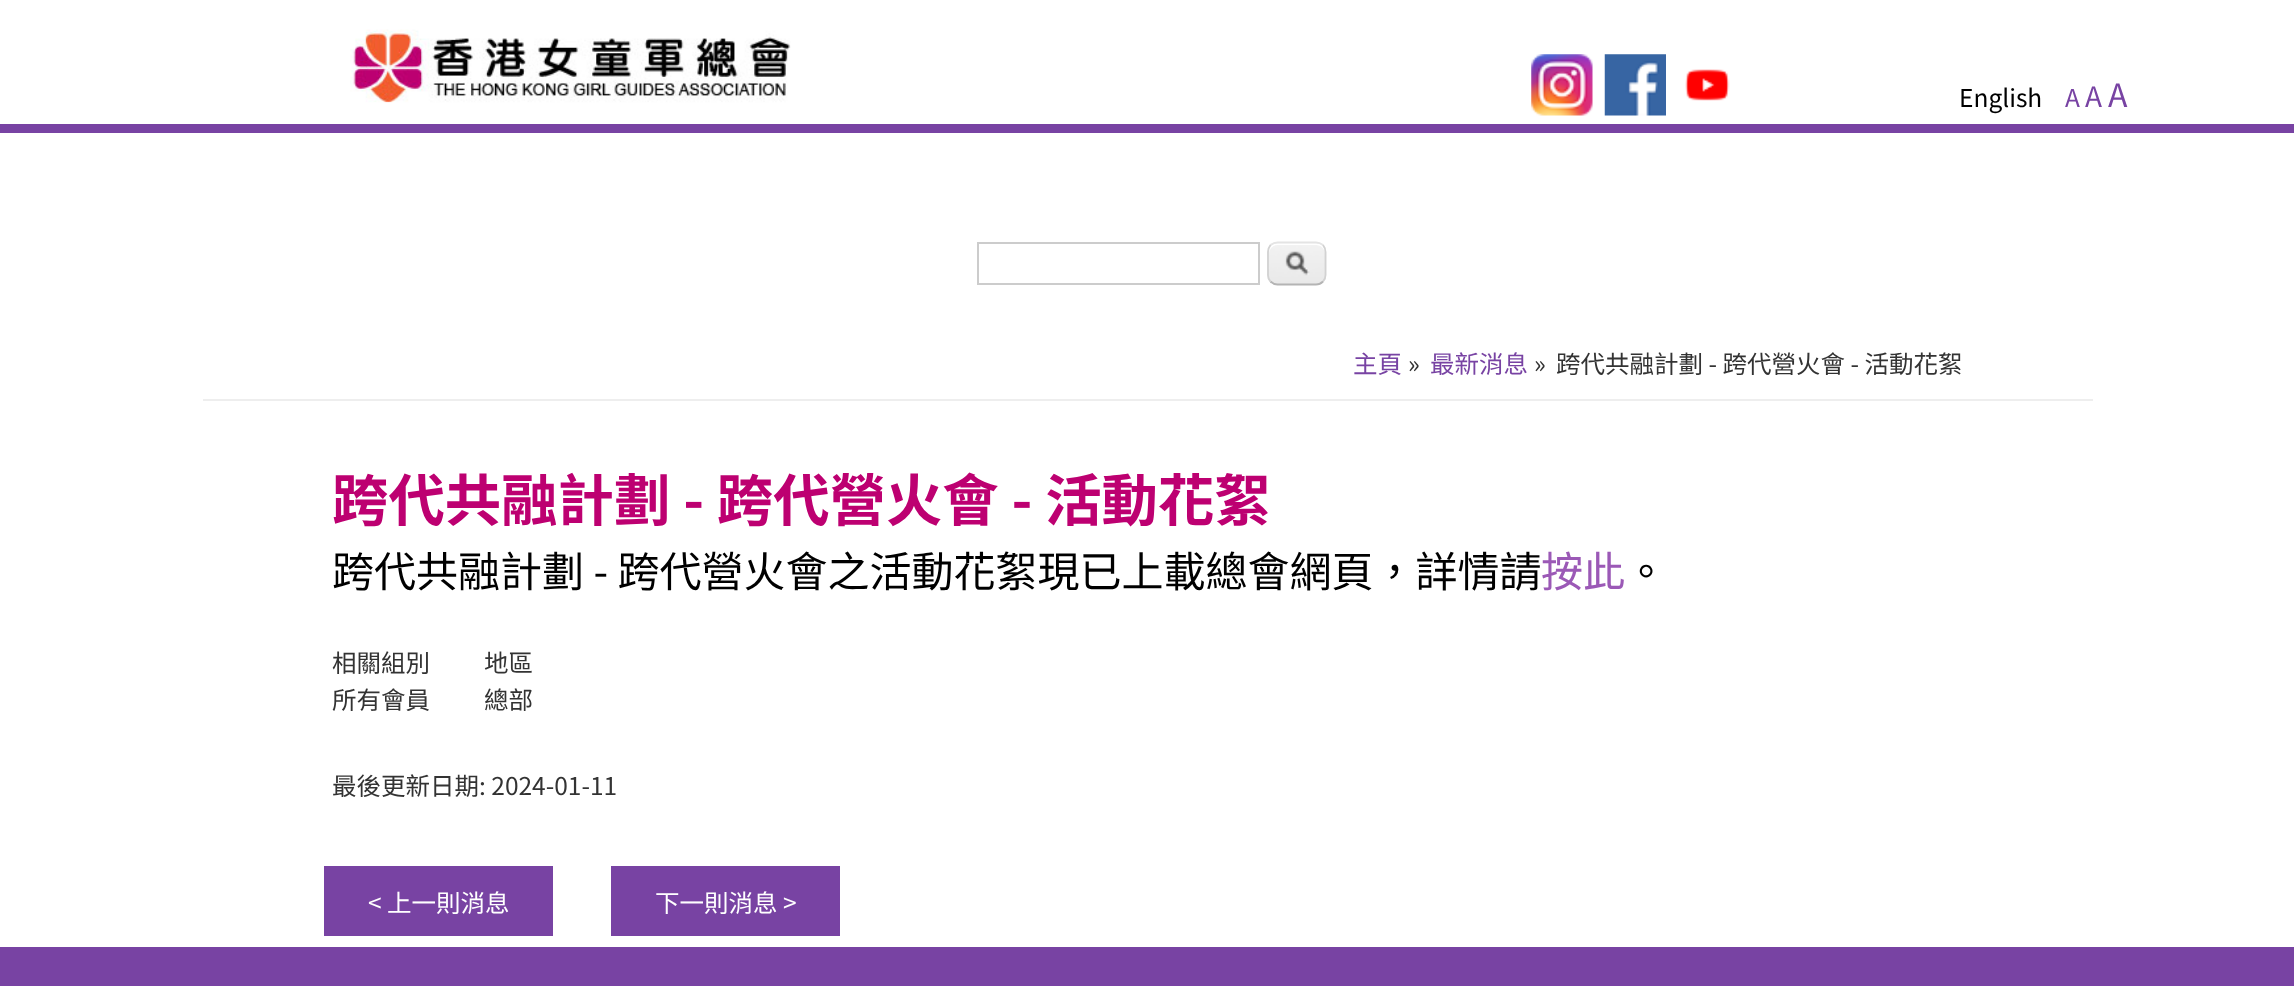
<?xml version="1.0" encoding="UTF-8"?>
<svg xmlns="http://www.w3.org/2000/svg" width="2294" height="986">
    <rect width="100%" height="100%" fill="#FFFFFF"/>
    <image x="350" y="29" width="441" height="74" href="img_01.png"/>
    <image x="1531" y="54" width="62" height="62" href="img_02.png"/>
    <image x="1604" y="54" width="62" height="62" href="img_03.png"/>
    <image x="1685" y="69" width="45" height="32" href="img_04.png"/>
    <text x="1959" y="107" font-family="Noto Sans TC" font-size="24.5" fill="#000000">English</text>
    <text x="2065" y="107" font-family="Noto Sans TC" font-size="24.5" fill="#7843A3">A</text>
    <text x="2085" y="107" font-family="Noto Sans TC" font-size="28" fill="#7843A3">A</text>
    <text x="2108" y="107" font-family="Noto Sans TC" font-size="32" fill="#7843A3">A</text>
    <rect x="0" y="124" width="2294" height="9" fill="#7843A3"/>
    <rect x="978" y="243" width="281" height="41" fill="none" stroke="#CCCCCC" stroke-width="2"/>
    <image x="1267" y="243" width="60" height="42" href="img_05.png"/>
    <path d="M 1278 245 H 1316 C 1321 245 1325 249 1325 254 C 1325 243 1319 243 1310 243 H 1284 C 1275 243 1269 243 1269 254 C 1269 249 1273 245 1278 245 Z" fill="#FFFFFF"/>
    <path d="M 1270.5 245 C 1272.5 243.5 1275 242.5 1277.5 242.5 H 1316 C 1318.5 242.5 1321 243.5 1323 245" fill="none" stroke="#E4E4E4" stroke-width="1.8"/>
    <path d="M 1323 245 C 1324.5 247 1325.5 249.5 1325.5 252 V 275 C 1325.5 277.5 1324.5 280 1323 281.5" fill="none" stroke="#D2D2D2" stroke-width="1.8"/>
    <path d="M 1323 281.5 C 1321 283.5 1318.5 284.5 1316 284.5 H 1277.5 C 1275 284.5 1272.5 283.5 1270.5 281.5" fill="none" stroke="#B4B4B4" stroke-width="1.8"/>
    <path d="M 1270.5 281.5 C 1269 280 1268 277.5 1268 275 V 252 C 1268 249.5 1269 247 1270.5 245" fill="none" stroke="#D2D2D2" stroke-width="1.8"/>
    <rect x="203" y="399" width="1890" height="2" fill="#EEEEEE"/>
    <text x="1353" y="373" font-family="Noto Sans TC" font-size="24.5" fill="#7843A3">主頁</text>
    <text x="1408" y="373" font-family="Noto Sans TC" font-size="24.5" fill="#333333">»</text>
    <text x="1430" y="373" font-family="Noto Sans TC" font-size="24.5" fill="#7843A3">最新消息</text>
    <text x="1534" y="373" font-family="Noto Sans TC" font-size="24.5" fill="#333333">»</text>
    <text x="1556" y="373" font-family="Noto Sans TC" font-size="24.5" fill="#333333">跨代共融計劃 - 跨代營火會 - 活動花絮</text>
    <text x="332" y="521" font-family="Noto Sans TC" font-size="56.4" font-weight="700" fill="#BD0071">跨代共融計劃 - 跨代營火會 - 活動花絮</text>
    <text x="332" y="587" font-family="Noto Sans TC" font-size="42" fill="#000000">跨代共融計劃 - 跨代營火會之活動花絮現已上載總會網頁，詳情請</text>
    <text x="1541" y="587" font-family="Noto Sans TC" font-size="42" fill="#9B59B6">按此</text>
    <text x="1625" y="587" font-family="Noto Sans TC" font-size="42" fill="#000000">。</text>
    <text font-family="Noto Sans TC" font-size="24.5" fill="#333333">
        <tspan x="332" y="672">相關組別</tspan>
        <tspan x="332" y="709">所有會員</tspan>
    </text>
    <text font-family="Noto Sans TC" font-size="24.5" fill="#333333">
        <tspan x="484" y="672">地區</tspan>
        <tspan x="484" y="709">總部</tspan>
    </text>
    <text x="332" y="795" font-family="Noto Sans TC" font-size="24.5" fill="#333333">最後更新日期: 2024-01-11</text>
    <rect x="324" y="866" width="229" height="70" fill="#7843A3"/>
    <text x="368" y="912" font-family="Noto Sans TC" font-size="24.5" fill="#FFFFFF">&lt; 上一則消息</text>
    <rect x="611" y="866" width="229" height="70" fill="#7843A3"/>
    <text x="655" y="912" font-family="Noto Sans TC" font-size="24.5" fill="#FFFFFF">下一則消息 &gt;</text>
    <rect x="0" y="947" width="2294" height="39" fill="#7843A3"/>
</svg>
